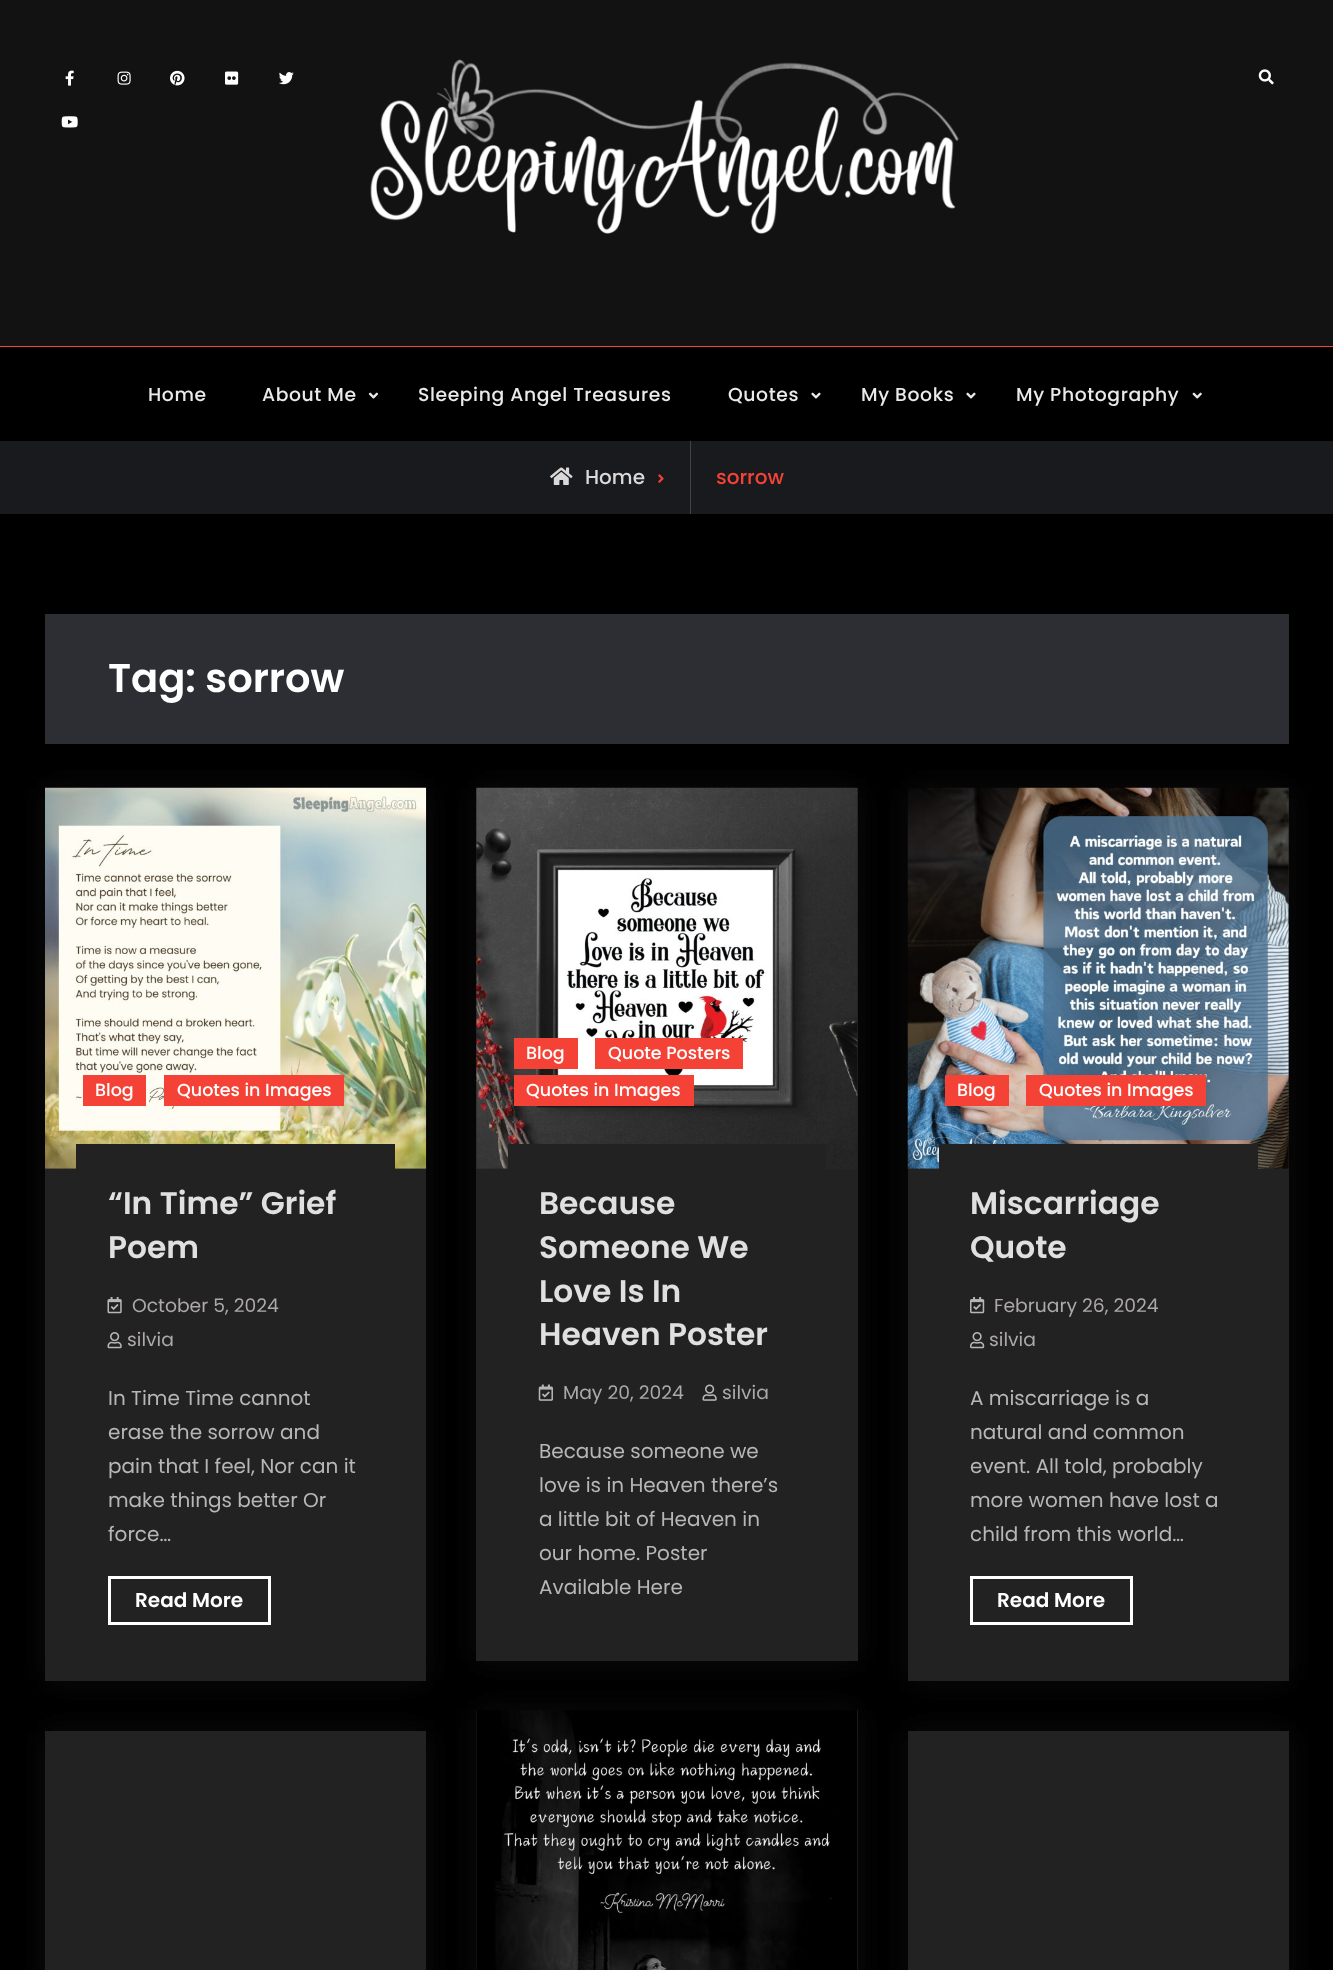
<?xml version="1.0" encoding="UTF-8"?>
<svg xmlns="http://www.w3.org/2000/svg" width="1333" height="1970">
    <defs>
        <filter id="blur1" x="-50%" y="-200%" width="200%" height="500%"><feGaussianBlur stdDeviation="15"/></filter>
    </defs>
    <rect width="100%" height="100%" fill="#000000"/>
    <rect x="0" y="0" width="1333" height="346" fill="#121213"/>
    <image x="65" y="70" width="9" height="16" href="img_01.png"/>
    <image x="117" y="71" width="14" height="14" href="img_02.png"/>
    <image x="170" y="70" width="15" height="16" href="img_03.png"/>
    <image x="225" y="71" width="14" height="14" href="img_04.png"/>
    <image x="279" y="72" width="15" height="13" href="img_05.png"/>
    <image x="61" y="116" width="17" height="12" href="img_06.png"/>
    <image x="370" y="59" width="589" height="175" href="img_07.png"/>
    <image x="1258" y="69" width="16" height="16" href="img_08.png"/>
    <rect x="0" y="346" width="1333" height="1" fill="#F44336"/>
    <text x="148" y="401" font-family="Poppins" font-size="18.75" font-weight="500" letter-spacing="0.6" fill="#EAEAEA">Home</text>
    <text x="262" y="401" font-family="Poppins" font-size="18.75" font-weight="500" letter-spacing="0.6" fill="#EAEAEA">About Me</text>
    <image x="368" y="392" width="11" height="7" href="img_09.png"/>
    <text x="418" y="401" font-family="Poppins" font-size="18.75" font-weight="500" letter-spacing="0.6" fill="#EAEAEA">Sleeping Angel Treasures</text>
    <text x="728" y="401" font-family="Poppins" font-size="18.75" font-weight="500" letter-spacing="0.6" fill="#EAEAEA">Quotes</text>
    <image x="811" y="392" width="10" height="7" href="img_10.png"/>
    <text x="861" y="401" font-family="Poppins" font-size="18.75" font-weight="500" letter-spacing="0.6" fill="#EAEAEA">My Books</text>
    <image x="966" y="392" width="10" height="7" href="img_10.png"/>
    <text x="1016" y="401" font-family="Poppins" font-size="18.75" font-weight="500" letter-spacing="0.6" fill="#EAEAEA">My Photography</text>
    <image x="1192" y="392" width="10" height="7" href="img_11.png"/>
    <rect x="0" y="441" width="1333" height="73" fill="#191A1E"/>
    <rect x="690" y="441" width="1" height="73" fill="#424346"/>
    <image x="550" y="467" width="23" height="18" href="img_12.png"/>
    <text x="585" y="484" font-family="Poppins" font-size="20" font-weight="500" fill="#DAD8D8">Home</text>
    <image x="658" y="474" width="6" height="9" href="img_13.png"/>
    <text x="716" y="484" font-family="Poppins" font-size="20" font-weight="500" fill="#F44336">sorrow</text>
    <rect x="45" y="614" width="1244" height="130" fill="#2C2E33"/>
    <text x="108" y="692" font-family="Poppins" font-size="40" font-weight="600" fill="#FFFFFF">Tag: sorrow</text>
    <rect x="45" y="788" width="381" height="893" fill="#7A7A7A" fill-opacity="0.1" filter="url(#blur1)"/>
    <rect x="45" y="1168" width="381" height="513" fill="#222222"/>
    <image x="45" y="787" width="382" height="382" href="img_14.png"/>
    <rect x="83" y="1075" width="63" height="31" fill="#F44336"/>
    <text x="95" y="1096" font-family="Poppins" font-size="17.5" font-weight="500" fill="#FFFFFF">Blog</text>
    <rect x="164" y="1075" width="180" height="31" fill="#F44336"/>
    <text x="177" y="1096" font-family="Poppins" font-size="17.5" font-weight="500" fill="#FFFFFF">Quotes in Images</text>
    <rect x="76" y="1144" width="319" height="25" fill="#222222"/>
    <text font-family="Poppins" font-size="31.25" font-weight="600" fill="#E0E0E0">
        <tspan x="108" y="1214">“In Time” Grief</tspan>
        <tspan x="108" y="1258">Poem</tspan>
    </text>
    <image x="107" y="1297" width="15" height="17" href="img_15.png"/>
    <text x="132" y="1312" font-family="Poppins" font-size="18.75" fill="#ADA9A9">October 5, 2024</text>
    <image x="107" y="1332" width="15" height="17" href="img_16.png"/>
    <text x="127" y="1346" font-family="Poppins" font-size="18.75" fill="#ADA9A9">silvia</text>
    <text font-family="Poppins" font-size="20" fill="#B7B7B7">
        <tspan x="108" y="1405">In Time Time cannot</tspan>
        <tspan x="108" y="1439">erase the sorrow and</tspan>
        <tspan x="108" y="1473">pain that I feel, Nor can it</tspan>
        <tspan x="108" y="1507">make things better Or</tspan>
        <tspan x="108" y="1541">force…</tspan>
    </text>
    <rect x="109.5" y="1577.5" width="160" height="46" fill="none" stroke="#FFFFFF" stroke-width="3"/>
    <text x="135" y="1607" font-family="Poppins" font-size="20" font-weight="600" fill="#FFFFFF">Read More</text>
    <rect x="476" y="788" width="382" height="873" fill="#7A7A7A" fill-opacity="0.1" filter="url(#blur1)"/>
    <rect x="476" y="788" width="382" height="873" fill="#222222"/>
    <image x="476" y="787" width="382" height="382" href="img_17.png"/>
    <rect x="514" y="1038" width="64" height="31" fill="#F44336"/>
    <text x="526" y="1059" font-family="Poppins" font-size="17.5" font-weight="500" fill="#FFFFFF">Blog</text>
    <rect x="595" y="1038" width="148" height="31" fill="#F44336"/>
    <text x="608" y="1059" font-family="Poppins" font-size="17.5" font-weight="500" fill="#FFFFFF">Quote Posters</text>
    <rect x="514" y="1075" width="180" height="31" fill="#F44336"/>
    <text x="526" y="1096" font-family="Poppins" font-size="17.5" font-weight="500" fill="#FFFFFF">Quotes in Images</text>
    <rect x="508" y="1144" width="318" height="25" fill="#222222"/>
    <text font-family="Poppins" font-size="31.25" font-weight="600" fill="#E0E0E0">
        <tspan x="539" y="1214">Because</tspan>
        <tspan x="539" y="1258">Someone We</tspan>
        <tspan x="539" y="1302">Love Is In</tspan>
        <tspan x="539" y="1345">Heaven Poster</tspan>
    </text>
    <image x="538" y="1384" width="15" height="17" href="img_18.png"/>
    <text x="563" y="1399" font-family="Poppins" font-size="18.75" fill="#ADA9A9">May 20, 2024</text>
    <image x="702" y="1384" width="15" height="17" href="img_19.png"/>
    <text x="722" y="1399" font-family="Poppins" font-size="18.75" fill="#ADA9A9">silvia</text>
    <text font-family="Poppins" font-size="20" fill="#B7B7B7">
        <tspan x="539" y="1458">Because someone we</tspan>
        <tspan x="539" y="1492">love is in Heaven there’s</tspan>
        <tspan x="539" y="1526">a little bit of Heaven in</tspan>
        <tspan x="539" y="1560">our home. Poster</tspan>
        <tspan x="539" y="1594">Available Here</tspan>
    </text>
    <rect x="908" y="788" width="381" height="893" fill="#7A7A7A" fill-opacity="0.1" filter="url(#blur1)"/>
    <rect x="908" y="788" width="381" height="893" fill="#222222"/>
    <image x="907" y="787" width="382" height="382" href="img_20.png"/>
    <rect x="945" y="1075" width="64" height="31" fill="#F44336"/>
    <text x="957" y="1096" font-family="Poppins" font-size="17.5" font-weight="500" fill="#FFFFFF">Blog</text>
    <rect x="1026" y="1075" width="180" height="31" fill="#F44336"/>
    <text x="1039" y="1096" font-family="Poppins" font-size="17.5" font-weight="500" fill="#FFFFFF">Quotes in Images</text>
    <rect x="939" y="1144" width="319" height="25" fill="#222222"/>
    <text font-family="Poppins" font-size="31.25" font-weight="600" fill="#E0E0E0">
        <tspan x="970" y="1214">Miscarriage</tspan>
        <tspan x="970" y="1258">Quote</tspan>
    </text>
    <image x="970" y="1297" width="15" height="17" href="img_21.png"/>
    <text x="994" y="1312" font-family="Poppins" font-size="18.75" fill="#ADA9A9">February 26, 2024</text>
    <image x="970" y="1332" width="15" height="17" href="img_22.png"/>
    <text x="989" y="1346" font-family="Poppins" font-size="18.75" fill="#ADA9A9">silvia</text>
    <text font-family="Poppins" font-size="20" fill="#B7B7B7">
        <tspan x="970" y="1405">A miscarriage is a</tspan>
        <tspan x="970" y="1439">natural and common</tspan>
        <tspan x="970" y="1473">event. All told, probably</tspan>
        <tspan x="970" y="1507">more women have lost a</tspan>
        <tspan x="970" y="1541">child from this world…</tspan>
    </text>
    <rect x="971.5" y="1577.5" width="160" height="46" fill="none" stroke="#FFFFFF" stroke-width="3"/>
    <text x="997" y="1607" font-family="Poppins" font-size="20" font-weight="600" fill="#FFFFFF">Read More</text>
    <rect x="45" y="1731" width="381" height="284" fill="#7A7A7A" fill-opacity="0.1" filter="url(#blur1)"/>
    <rect x="45" y="1731" width="381" height="239" fill="#222222"/>
    <rect x="476" y="1710" width="382" height="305" fill="#7A7A7A" fill-opacity="0.1" filter="url(#blur1)"/>
    <rect x="476" y="1710" width="382" height="260" fill="#222222"/>
    <image x="476" y="1710" width="382" height="260" href="img_23.png"/>
    <rect x="908" y="1731" width="381" height="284" fill="#7A7A7A" fill-opacity="0.1" filter="url(#blur1)"/>
    <rect x="908" y="1731" width="381" height="239" fill="#222222"/>
</svg>
